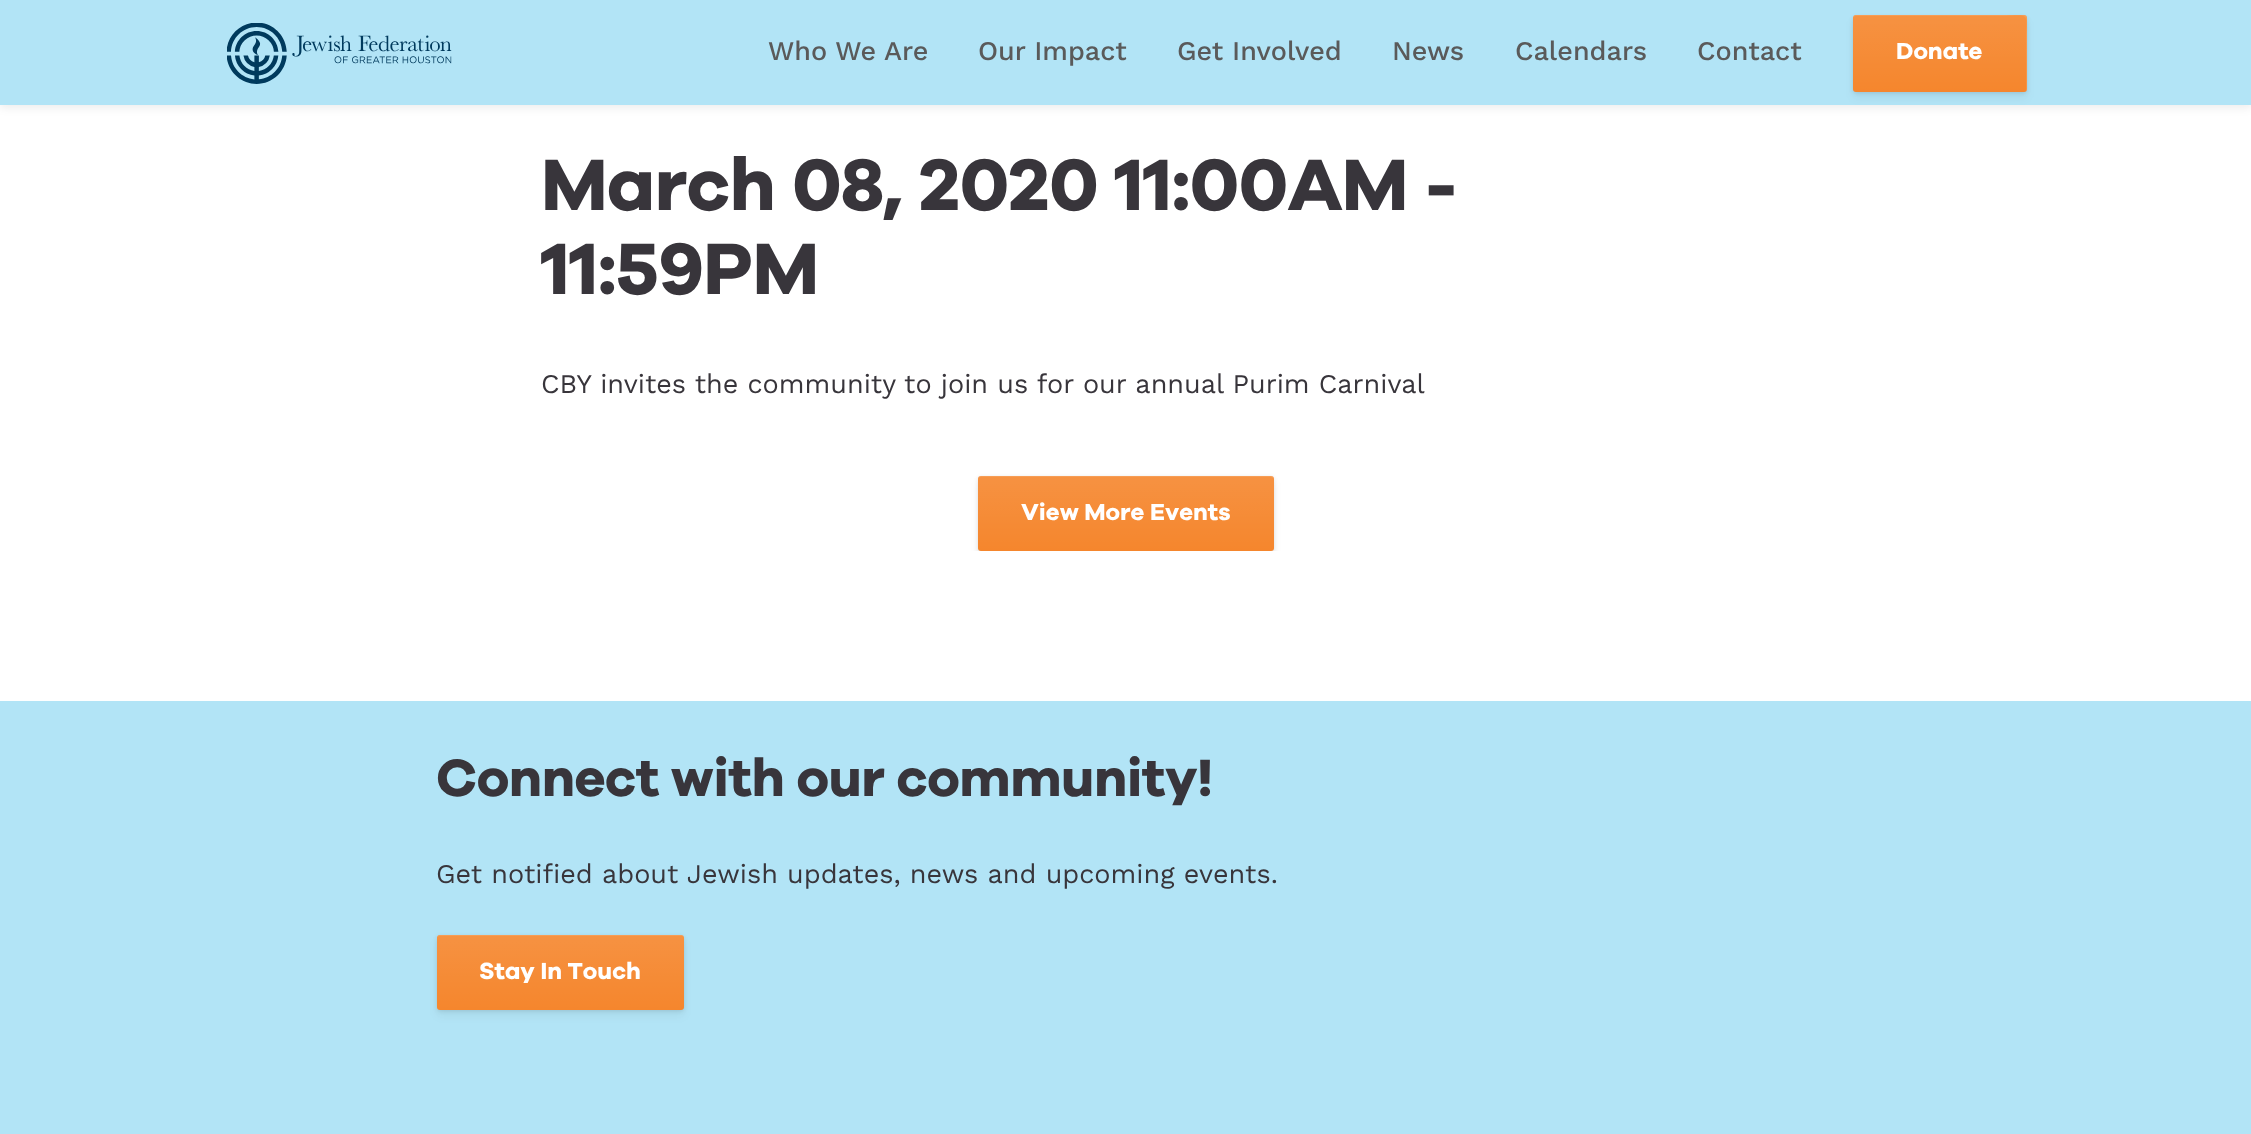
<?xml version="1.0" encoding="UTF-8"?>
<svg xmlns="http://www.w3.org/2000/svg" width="2251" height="1134">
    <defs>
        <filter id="blur1" x="-50%" y="-200%" width="200%" height="500%"><feGaussianBlur stdDeviation="4.5"/></filter>
        <filter id="blur2" x="-50%" y="-200%" width="200%" height="500%"><feGaussianBlur stdDeviation="2"/></filter>
        <linearGradient id="g1" gradientUnits="userSpaceOnUse" x1="1940" y1="15" x2="1940" y2="92"><stop offset="0" stop-color="#FFFFFF" stop-opacity="0.1"/><stop offset="1" stop-color="#FFFFFF" stop-opacity="0"/></linearGradient>
        <clipPath id="clip1"><rect x="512" y="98" width="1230" height="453"/></clipPath>
        <linearGradient id="g2" gradientUnits="userSpaceOnUse" x1="1126" y1="476" x2="1126" y2="551"><stop offset="0" stop-color="#FFFFFF" stop-opacity="0.1"/><stop offset="1" stop-color="#FFFFFF" stop-opacity="0"/></linearGradient>
        <linearGradient id="g3" gradientUnits="userSpaceOnUse" x1="560" y1="935" x2="560" y2="1010"><stop offset="0" stop-color="#FFFFFF" stop-opacity="0.1"/><stop offset="1" stop-color="#FFFFFF" stop-opacity="0"/></linearGradient>
    </defs>
    <rect width="100%" height="100%" fill="#FFFFFF"/>
    <rect x="0" y="3" width="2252" height="105" fill="#000000" fill-opacity="0.07" filter="url(#blur1)"/>
    <rect x="0" y="0" width="2251" height="105" fill="#B2E4F6"/>
    <image x="227" y="23" width="225" height="61" href="img_01.png"/>
    <text x="768" y="60" font-family="Work Sans" font-size="27" font-weight="500" fill="#5A5A5A">Who We Are</text>
    <text x="978" y="60" font-family="Work Sans" font-size="27" font-weight="500" fill="#5A5A5A">Our Impact</text>
    <text x="1177" y="60" font-family="Work Sans" font-size="27" font-weight="500" fill="#5A5A5A">Get Involved</text>
    <text x="1392" y="60" font-family="Work Sans" font-size="27" font-weight="500" fill="#5A5A5A">News</text>
    <text x="1515" y="60" font-family="Work Sans" font-size="27" font-weight="500" fill="#5A5A5A">Calendars</text>
    <text x="1697" y="60" font-family="Work Sans" font-size="27" font-weight="500" fill="#5A5A5A">Contact</text>
    <rect x="1853" y="21" width="174" height="77" rx="3" fill="#000000" fill-opacity="0.05" filter="url(#blur1)"/>
    <rect x="1853" y="17" width="174" height="76" rx="3" fill="#000000" fill-opacity="0.1" filter="url(#blur2)"/>
    <rect x="1853" y="15" width="174" height="77" rx="3" fill="#F5862D"/>
    <rect x="1853" y="15" width="174" height="77" rx="3" fill="url(#g1)"/>
    <path d="M 1856 16 H 1996 C 2033 16 2026 9 2026 43 V 91 C 2027 91 2027 90 2027 89 V 18 C 2027 16 2026 15 2024 15 H 1856 C 1855 15 1853 16 1853 17 Z" fill="#FFFFFF" fill-opacity="0.1"/>
    <text x="1896" y="59" font-family="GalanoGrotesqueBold" font-size="24" fill="#FFFFFF">Donate</text>
    <text font-family="GalanoGrotesqueBold" font-size="75" letter-spacing="-0.7" fill="#38353B">
        <tspan x="541" y="210">March 08, 2020 11:00AM -</tspan>
        <tspan x="541" y="294">11:59PM</tspan>
    </text>
    <text x="541" y="393" font-family="Work Sans" font-size="27" fill="#38353B">CBY invites the community to join us for our annual Purim Carnival</text>
    <g clip-path="url(#clip1)">
        <rect x="978" y="482" width="296" height="75" rx="3" fill="#000000" fill-opacity="0.05" filter="url(#blur1)"/>
        <rect x="978" y="477" width="296" height="75" rx="3" fill="#000000" fill-opacity="0.1" filter="url(#blur2)"/>
    </g>
    <rect x="978" y="476" width="296" height="75" rx="3" fill="#F5862D"/>
    <rect x="978" y="476" width="296" height="75" rx="3" fill="url(#g2)"/>
    <path d="M 981 477 H 1270 C 1272 477 1274 478 1274 480 L 1273 477 L 1272 476 H 981 C 979 476 978 478 978 480 C 978 478 979 477 981 477 Z" fill="#FFFFFF" fill-opacity="0.1"/>
    <text x="1021" y="520" font-family="GalanoGrotesqueBold" font-size="24" fill="#FFFFFF">View More Events</text>
    <rect x="0" y="701" width="2251" height="433" fill="#B2E4F6"/>
    <text x="436" y="796" font-family="GalanoGrotesqueBold" font-size="54" letter-spacing="-0.5" fill="#38353B">Connect with our community!</text>
    <text x="436" y="883" font-family="Work Sans" font-size="27" fill="#38353B">Get notified about Jewish updates, news and upcoming events.</text>
    <rect x="437" y="941" width="247" height="75" rx="3" fill="#000000" fill-opacity="0.05" filter="url(#blur1)"/>
    <rect x="437" y="936" width="247" height="75" rx="3" fill="#000000" fill-opacity="0.1" filter="url(#blur2)"/>
    <rect x="437" y="935" width="247" height="75" rx="3" fill="#F5862D"/>
    <rect x="437" y="935" width="247" height="75" rx="3" fill="url(#g3)"/>
    <path d="M 440 936 H 682 L 684 937 V 939 V 938 C 684 936 683 935 681 935 H 440 C 439 935 438 936 437 937 Z" fill="#FFFFFF" fill-opacity="0.1"/>
    <text x="479" y="979" font-family="GalanoGrotesqueBold" font-size="24" fill="#FFFFFF">Stay In Touch</text>
</svg>
